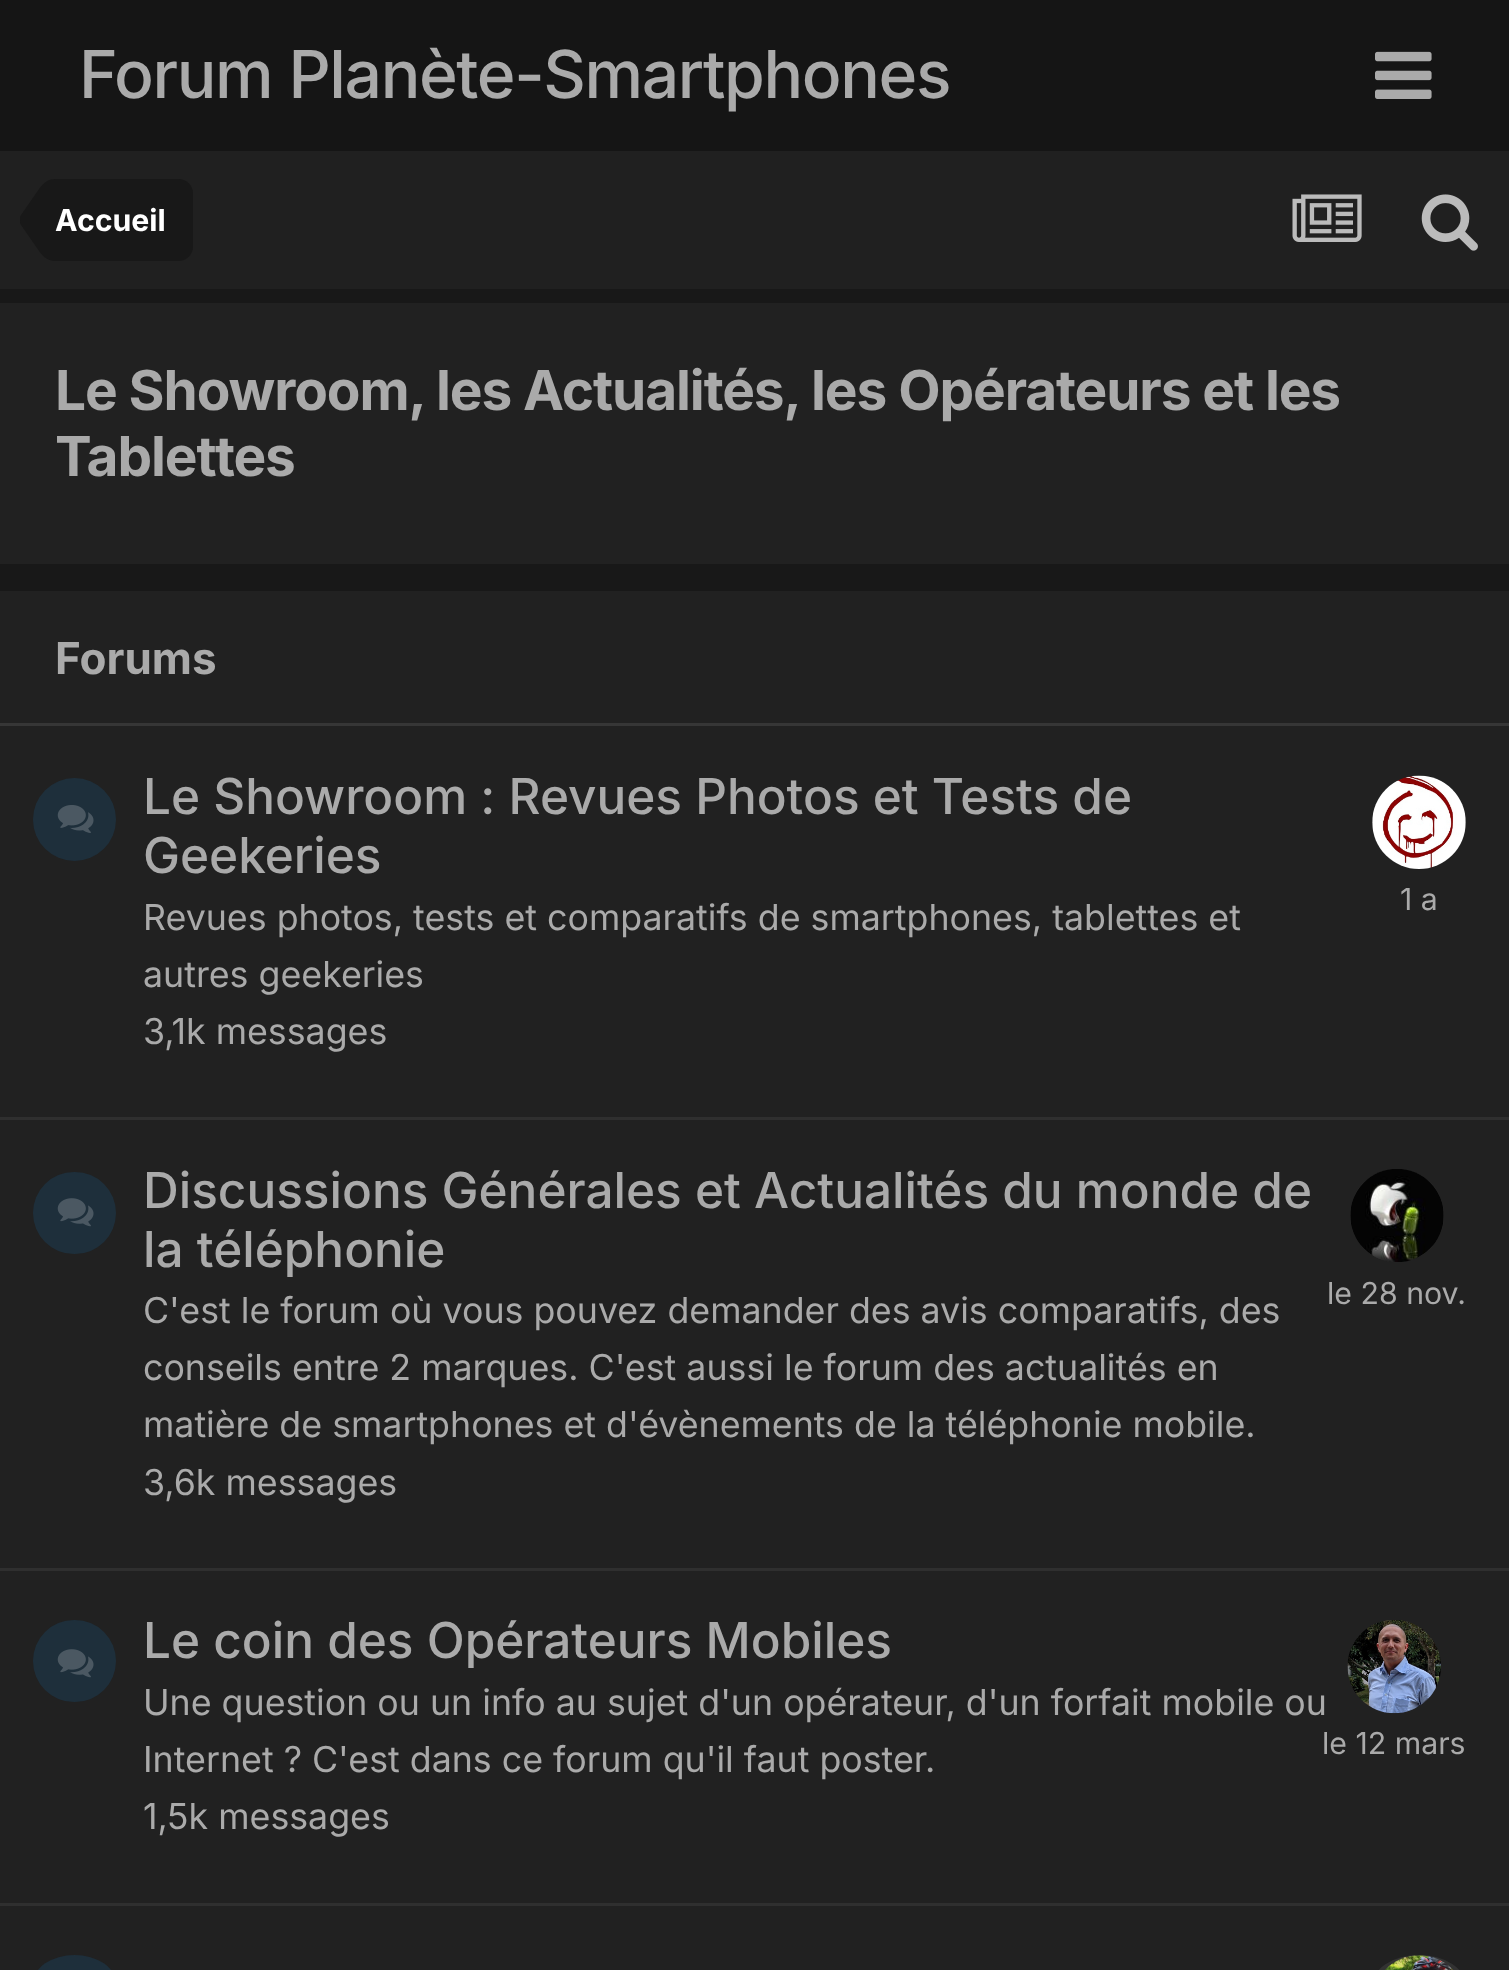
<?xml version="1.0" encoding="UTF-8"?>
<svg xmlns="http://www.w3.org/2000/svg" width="1509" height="1970">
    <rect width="100%" height="100%" fill="#181818"/>
    <rect x="0" y="0" width="1509" height="151" fill="#151515"/>
    <text x="79" y="98" font-family="Inter" font-size="66" font-weight="500" letter-spacing="-1.4" fill="#AAAAAA">Forum Planète-Smartphones</text>
    <image x="1375" y="51" width="57" height="48" href="img_01.png"/>
    <rect x="0" y="151" width="1509" height="138" fill="#202020"/>
    <path d="M 55 179 H 179 C 186.5 179 193 185.5 193 193 V 247 C 193 254.5 186.5 261 179 261 H 55 Z" fill="#181818"/>
    <path d="M 55 220 V 261 C 49 261 44 258 39 251 L 21 225 C 20 224 20 222 20 220 Z" fill="#181818"/>
    <path d="M 55 220 H 20 C 20 218 20 216 21 215 L 39 189 C 44 182 49 179 55 179 Z" fill="#181818"/>
    <text x="55" y="231" font-family="Inter" font-size="30.25" font-weight="700" fill="#FFFFFF">Accueil</text>
    <image x="1292" y="194" width="70" height="48" href="img_02.png"/>
    <image x="1421" y="194" width="57" height="57" href="img_03.png"/>
    <rect x="0" y="303" width="1509" height="261" fill="#212121"/>
    <text font-family="Inter" font-size="55" font-weight="700" letter-spacing="-1.1" fill="#AAAAAA">
        <tspan x="55" y="410">Le Showroom, les Actualités, les Opérateurs et les</tspan>
        <tspan x="55" y="476">Tablettes</tspan>
    </text>
    <rect x="0" y="591" width="1509" height="1379" fill="#212121"/>
    <rect x="0" y="723" width="1509" height="3" fill="#363636"/>
    <text x="55" y="674" font-family="Inter" font-size="44" font-weight="700" fill="#AAAAAA">Forums</text>
    <rect x="0" y="1117" width="1509" height="3" fill="#2F2F2F"/>
    <circle cx="74.5" cy="819.5" r="41.5" fill="#1E2F3B"/>
    <image x="57" y="805" width="37" height="28" href="img_04.png"/>
    <text font-family="Inter" font-size="49.5" font-weight="500" fill="#AAAAAA">
        <tspan x="143" y="814">Le Showroom : Revues Photos et Tests de</tspan>
        <tspan x="143" y="873">Geekeries</tspan>
    </text>
    <text font-family="Inter" font-size="35.75" fill="#AAAAAA">
        <tspan x="143" y="930">Revues photos, tests et comparatifs de smartphones, tablettes et</tspan>
        <tspan x="143" y="987">autres geekeries</tspan>
    </text>
    <rect x="1372" y="776" width="94" height="93" rx="46.5" fill="#323232"/>
    <image x="1372" y="775" width="94" height="94" href="img_05.png"/>
    <text x="1400" y="910" font-family="Inter" font-size="30.25" fill="#AAAAAA">1 a</text>
    <text x="143" y="1044" font-family="Inter" font-size="35.75" fill="#AAAAAA">3,1k messages</text>
    <rect x="0" y="1568" width="1509" height="3" fill="#2F2F2F"/>
    <rect x="33" y="1172" width="83" height="82" rx="41" fill="#1E2F3B"/>
    <image x="57" y="1198" width="37" height="29" href="img_06.png"/>
    <text font-family="Inter" font-size="49.5" font-weight="500" fill="#AAAAAA">
        <tspan x="143" y="1208">Discussions Générales et Actualités du monde de</tspan>
        <tspan x="143" y="1267">la téléphonie</tspan>
    </text>
    <text font-family="Inter" font-size="35.75" fill="#AAAAAA">
        <tspan x="143" y="1323">C'est le forum où vous pouvez demander des avis comparatifs, des</tspan>
        <tspan x="143" y="1380">conseils entre 2 marques. C'est aussi le forum des actualités en</tspan>
        <tspan x="143" y="1437">matière de smartphones et d'évènements de la téléphonie mobile.</tspan>
    </text>
    <rect x="1350" y="1169" width="94" height="93" rx="46.5" fill="#323232"/>
    <image x="1350" y="1169" width="94" height="93" href="img_07.png"/>
    <text x="1327" y="1304" font-family="Inter" font-size="30.25" fill="#AAAAAA">le 28 nov.</text>
    <text x="143" y="1495" font-family="Inter" font-size="35.75" fill="#AAAAAA">3,6k messages</text>
    <rect x="0" y="1903" width="1509" height="3" fill="#2F2F2F"/>
    <rect x="33" y="1620" width="83" height="82" rx="41" fill="#1E2F3B"/>
    <image x="57" y="1649" width="37" height="29" href="img_06.png"/>
    <text x="143" y="1658" font-family="Inter" font-size="49.5" font-weight="500" fill="#AAAAAA">Le coin des Opérateurs Mobiles</text>
    <text font-family="Inter" font-size="35.75" fill="#AAAAAA">
        <tspan x="143" y="1715">Une question ou un info au sujet d'un opérateur, d'un forfait mobile ou</tspan>
        <tspan x="143" y="1772">Internet ? C'est dans ce forum qu'il faut poster.</tspan>
    </text>
    <image x="1347" y="1620" width="94" height="94" href="img_08.png"/>
    <text x="1322" y="1754" font-family="Inter" font-size="30.25" fill="#AAAAAA">le 12 mars</text>
    <text x="143" y="1829" font-family="Inter" font-size="35.75" fill="#AAAAAA">1,5k messages</text>
    <rect x="33" y="1955" width="83" height="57" rx="41.5" fill="#1E2F3B"/>
    <rect x="1372" y="1955" width="94" height="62" rx="47" fill="#323232"/>
    <image x="1385" y="1955" width="68" height="15" href="img_09.png"/>
</svg>
